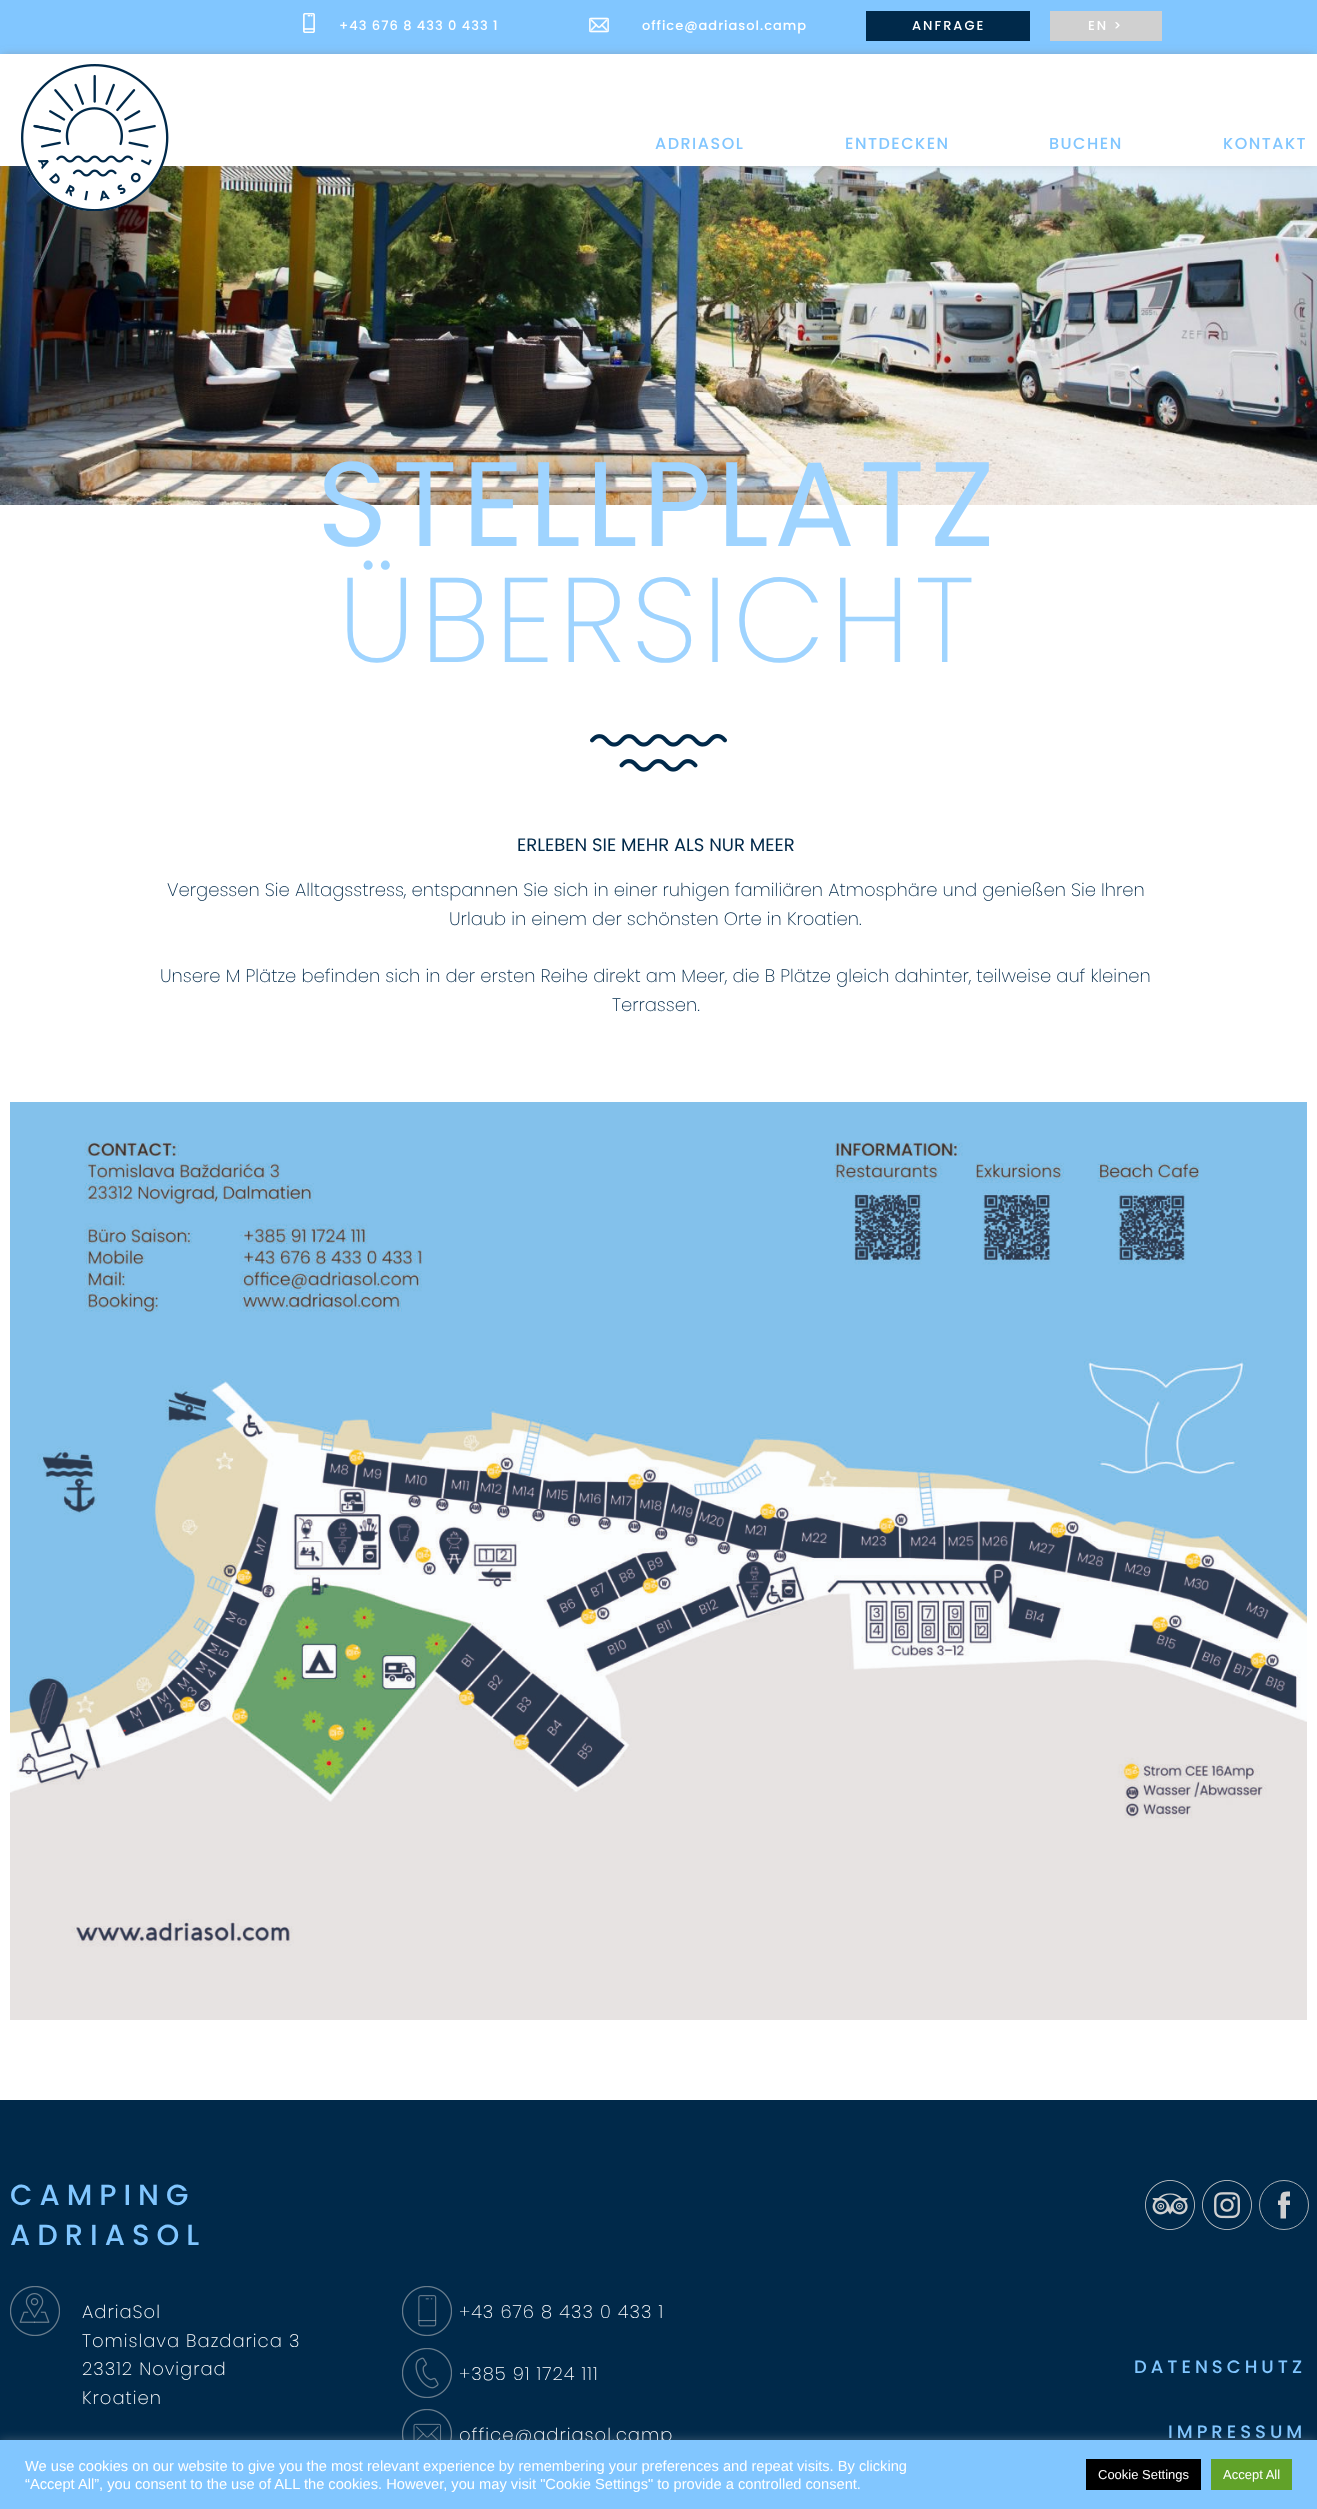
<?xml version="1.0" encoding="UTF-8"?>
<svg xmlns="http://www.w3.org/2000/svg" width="1317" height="2509">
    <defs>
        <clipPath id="clip1"><path d="M 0 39 H 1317 V 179 H 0 Z M 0 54 H 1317 V 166 H 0 Z" clip-rule="evenodd"/></clipPath>
        <filter id="blur1" x="-50%" y="-200%" width="200%" height="500%"><feGaussianBlur stdDeviation="5"/></filter>
    </defs>
    <rect width="100%" height="100%" fill="#FFFFFF"/>
    <rect x="0" y="0" width="1317" height="54" fill="#81C6FF"/>
    <image x="303" y="13" width="12" height="20" href="img_01.png"/>
    <text x="339" y="30" font-family="Poppins" font-size="13" font-weight="500" letter-spacing="1" fill="#FFFFFF">+43 676 8 433 0 433 1</text>
    <image x="589" y="17" width="20" height="16" href="img_02.png"/>
    <text x="642" y="30" font-family="Poppins" font-size="13" font-weight="500" letter-spacing="1" fill="#FFFFFF">office@adriasol.camp</text>
    <rect x="866" y="11" width="164" height="30" fill="#00294A"/>
    <text x="912" y="30" font-family="Poppins" font-size="13" font-weight="500" letter-spacing="2" fill="#FFFFFF">ANFRAGE</text>
    <rect x="1050" y="11" width="112" height="30" fill="#D0D0D0"/>
    <text x="1088" y="30" font-family="Poppins" font-size="13" font-weight="500" letter-spacing="2" fill="#FFFFFF">EN &gt;</text>
    <image x="0" y="166" width="1317" height="339" href="img_04.png"/>
    <g clip-path="url(#clip1)">
        <rect x="2" y="55" width="1313" height="108" fill="#7D7D7D" fill-opacity="0.5" filter="url(#blur1)"/>
    </g>
    <image x="21" y="64" width="148" height="147" href="img_03.png"/>
    <text x="655" y="149" font-family="Poppins" font-size="16" font-weight="500" letter-spacing="1.5" fill="#81C6FF">ADRIASOL</text>
    <text x="845" y="149" font-family="Poppins" font-size="16" font-weight="500" letter-spacing="1.5" fill="#81C6FF">ENTDECKEN</text>
    <text x="1049" y="149" font-family="Poppins" font-size="16" font-weight="500" letter-spacing="1.5" fill="#81C6FF">BUCHEN</text>
    <text x="1223" y="149" font-family="Poppins" font-size="16" font-weight="500" letter-spacing="1.5" fill="#81C6FF">KONTAKT</text>
    <text x="317" y="546" font-family="Poppins" font-size="120" letter-spacing="5" fill="#9FD4FF">STELLPLATZ</text>
    <text x="338" y="662" font-family="Poppins" font-size="120" font-weight="200" letter-spacing="5" fill="#9FD4FF">ÜBERSICHT</text>
    <image x="590" y="734" width="137" height="38" href="img_05.png"/>
    <text x="517" y="851" font-family="Poppins" font-size="18" fill="#00294A">ERLEBEN SIE MEHR ALS NUR MEER</text>
    <text x="167" y="896" font-family="Poppins" font-size="18" font-weight="200" fill="#00294A">Vergessen Sie Alltagsstress, entspannen Sie sich in einer ruhigen familiären Atmosphäre und genießen Sie Ihren</text>
    <text x="449" y="925" font-family="Poppins" font-size="18" font-weight="200" fill="#00294A">Urlaub in einem der schönsten Orte in Kroatien.</text>
    <text x="160" y="982" font-family="Poppins" font-size="18" font-weight="200" fill="#00294A">Unsere M Plätze befinden sich in der ersten Reihe direkt am Meer, die B Plätze gleich dahinter, teilweise auf kleinen</text>
    <text x="612" y="1011" font-family="Poppins" font-size="18" font-weight="200" fill="#00294A">Terrassen.</text>
    <image x="10" y="1102" width="1297" height="918" href="img_06.png"/>
    <rect x="0" y="2100" width="1317" height="340" fill="#00294A"/>
    <text font-family="Poppins" font-size="29" font-weight="500" letter-spacing="7" fill="#81C6FF">
        <tspan x="10" y="2205">CAMPING</tspan>
        <tspan x="10" y="2245">ADRIASOL</tspan>
    </text>
    <image x="1145" y="2180" width="50" height="50" href="img_07.png"/>
    <image x="1202" y="2180" width="50" height="50" href="img_08.png"/>
    <circle cx="1284" cy="2205" r="24.5" fill="none" stroke="#D0D0D0" stroke-width="0.8"/>
    <path d="M 1280.5 2218.5 H 1286 V 2205 H 1290 V 2200.5 H 1286 C 1286 2196 1285.5 2196.5 1290 2196.5 V 2191.5 C 1282 2191.5 1280.5 2191.5 1280.5 2200.5 H 1278 V 2205 H 1280.5 Z" fill="#D0D0D0"/>
    <image x="10" y="2286" width="50" height="50" href="img_09.png"/>
    <text font-family="Poppins" font-size="18" font-weight="200" letter-spacing="1" fill="#FFFFFF">
        <tspan x="82" y="2318">AdriaSol</tspan>
        <tspan x="82" y="2347">Tomislava Bazdarica 3</tspan>
        <tspan x="82" y="2375">23312 Novigrad</tspan>
        <tspan x="82" y="2404">Kroatien</tspan>
    </text>
    <image x="402" y="2286" width="50" height="50" href="img_10.png"/>
    <text x="459" y="2318" font-family="Poppins" font-size="18" font-weight="200" letter-spacing="1" fill="#FFFFFF">+43 676 8 433 0 433 1</text>
    <image x="402" y="2348" width="50" height="50" href="img_11.png"/>
    <text x="459" y="2380" font-family="Poppins" font-size="18" font-weight="200" letter-spacing="1" fill="#FFFFFF">+385 91 1724 111</text>
    <image x="402" y="2409" width="50" height="31" href="img_12.png"/>
    <text x="459" y="2441" font-family="Poppins" font-size="18" font-weight="200" letter-spacing="1" fill="#FFFFFF">office@adriasol.camp</text>
    <text x="1134" y="2373" font-family="Poppins" font-size="18" font-weight="500" letter-spacing="4" fill="#81C6FF">DATENSCHUTZ</text>
    <text x="1168" y="2438" font-family="Poppins" font-size="18" font-weight="500" letter-spacing="4" fill="#81C6FF">IMPRESSUM</text>
    <rect x="0" y="2439" width="1317" height="69" fill="#ACABAB" fill-opacity="0.3" filter="url(#blur1)"/>
    <rect x="0" y="2440" width="1317" height="69" fill="#81C6FF"/>
    <text font-family="Liberation Sans" font-size="14.67" fill="#FFFFFF">
        <tspan x="25" y="2471">We use cookies on our website to give you the most relevant experience by remembering your preferences and repeat visits. By clicking</tspan>
        <tspan x="25" y="2489">“Accept All”, you consent to the use of ALL the cookies. However, you may visit "Cookie Settings" to provide a controlled consent.</tspan>
    </text>
    <rect x="1086" y="2459" width="115" height="31" fill="#000000"/>
    <text x="1098" y="2479" font-family="Liberation Sans" font-size="13" fill="#FFFFFF">Cookie Settings</text>
    <rect x="1211" y="2459" width="81" height="31" fill="#61A229"/>
    <text x="1223" y="2479" font-family="Liberation Sans" font-size="13" fill="#FFFFFF">Accept All</text>
</svg>
